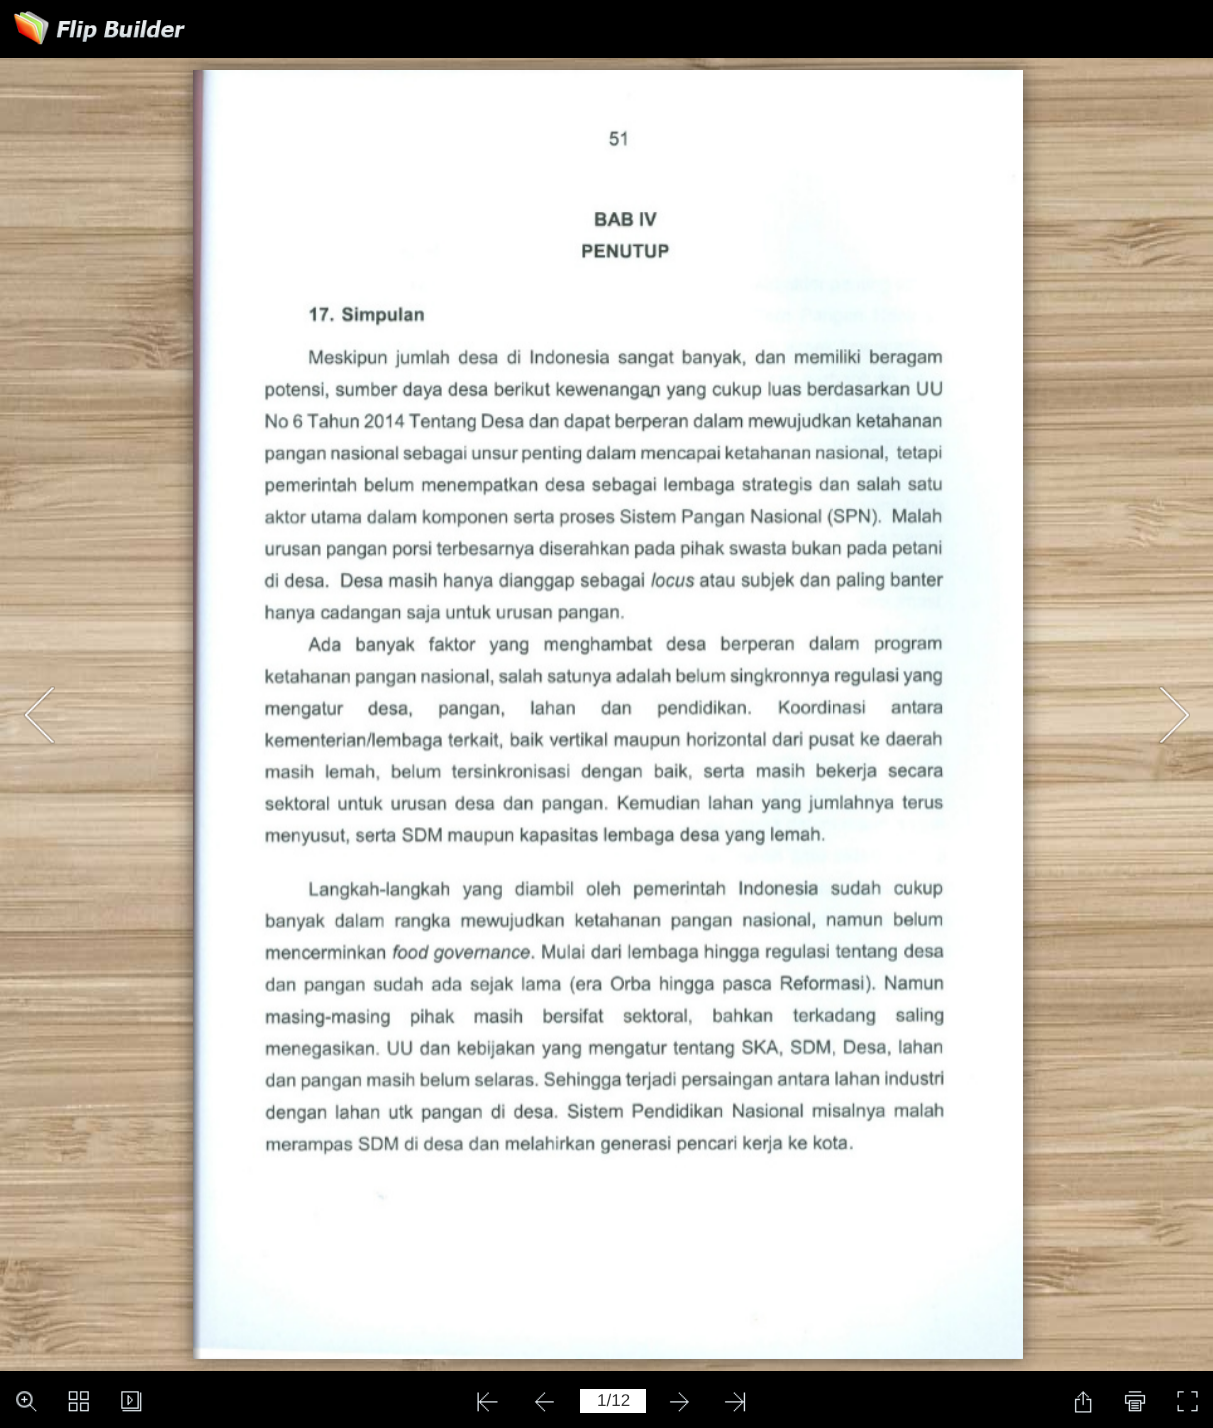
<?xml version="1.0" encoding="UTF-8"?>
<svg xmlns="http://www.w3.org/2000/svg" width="1213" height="1428">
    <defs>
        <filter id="blur1" x="-50%" y="-200%" width="200%" height="500%"><feGaussianBlur stdDeviation="9.5"/></filter>
        <linearGradient id="g1" gradientUnits="userSpaceOnUse" x1="192" y1="714" x2="201" y2="714"><stop offset="0" stop-color="#141414" stop-opacity="0.5"/><stop offset="1" stop-color="#141414" stop-opacity="0"/></linearGradient>
    </defs>
    <rect width="100%" height="100%" fill="#FFFFFF"/>
    <image x="0" y="58" width="1213" height="1313" href="img_05.png"/>
    <rect x="193" y="70" width="830" height="1289" fill="#282828" fill-opacity="0.7" filter="url(#blur1)"/>
    <rect x="0" y="0" width="1213" height="58" fill="#000000"/>
    <image x="13" y="11" width="172" height="34" href="img_01.png"/>
    <image x="193" y="1357" width="830" height="2" href="img_03.png"/>
    <image x="193" y="1357" width="830" height="1" href="img_04.png"/>
    <image x="193" y="70" width="830" height="1289" href="img_02.png"/>
    <rect x="193" y="70" width="8" height="1289" fill="url(#g1)"/>
    <image x="23" y="686" width="32" height="58" href="img_06.png"/>
    <image x="1158" y="686" width="32" height="58" href="img_07.png"/>
    <rect x="0" y="1371" width="1213" height="57" fill="#000000"/>
    <image x="16" y="1391" width="21" height="21" href="img_08.png"/>
    <image x="68" y="1391" width="21" height="21" href="img_09.png"/>
    <image x="121" y="1391" width="21" height="21" href="img_10.png"/>
    <image x="477" y="1392" width="21" height="20" href="img_11.png"/>
    <image x="534" y="1392" width="20" height="20" href="img_12.png"/>
    <rect x="580" y="1389" width="66" height="24" fill="#FFFFFF"/>
    <text x="597" y="1406" font-family="Liberation Sans" font-size="17" fill="#333333">1/12</text>
    <image x="669" y="1392" width="20" height="20" href="img_13.png"/>
    <image x="724" y="1392" width="22" height="20" href="img_14.png"/>
    <image x="1074" y="1391" width="18" height="22" href="img_15.png"/>
    <image x="1124" y="1391" width="22" height="21" href="img_16.png"/>
    <image x="1177" y="1391" width="21" height="21" href="img_17.png"/>
</svg>
